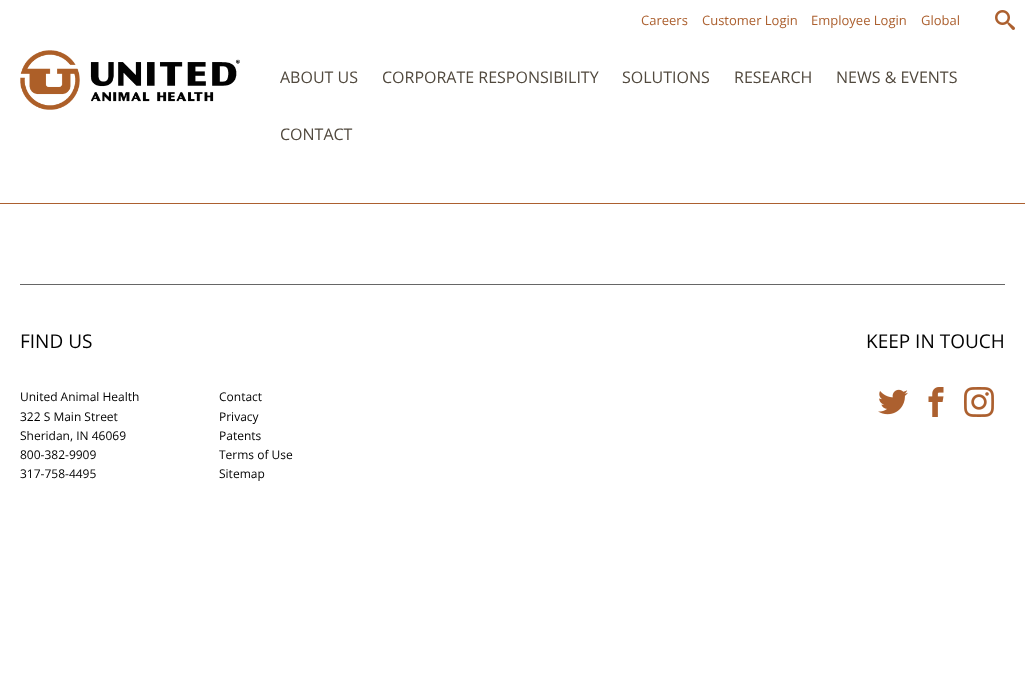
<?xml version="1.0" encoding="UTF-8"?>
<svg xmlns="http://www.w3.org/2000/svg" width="1025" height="695">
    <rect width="100%" height="100%" fill="#FFFFFF"/>
    <text x="641" y="25" font-family="Open Sans" font-size="13" fill="#AC602F">Careers</text>
    <text x="702" y="25" font-family="Open Sans" font-size="13" fill="#AC602F">Customer Login</text>
    <text x="811" y="25" font-family="Open Sans" font-size="13" fill="#AC602F">Employee Login</text>
    <text x="921" y="25" font-family="Open Sans" font-size="13" fill="#AC602F">Global</text>
    <image x="995" y="10" width="20" height="20" href="img_01.png"/>
    <rect x="0" y="203" width="1025" height="1" fill="#AC602F"/>
    <image x="20" y="50" width="220" height="60" href="img_02.png"/>
    <text x="280" y="83" font-family="Open Sans" font-size="16" fill="#51493E">ABOUT US</text>
    <text x="382" y="83" font-family="Open Sans" font-size="16" fill="#51493E">CORPORATE RESPONSIBILITY</text>
    <text x="622" y="83" font-family="Open Sans" font-size="16" fill="#51493E">SOLUTIONS</text>
    <text x="734" y="83" font-family="Open Sans" font-size="16" fill="#51493E">RESEARCH</text>
    <text x="836" y="83" font-family="Open Sans" font-size="16" fill="#51493E">NEWS &amp; EVENTS</text>
    <text x="280" y="140" font-family="Open Sans" font-size="16" fill="#51493E">CONTACT</text>
    <rect x="20" y="284" width="985" height="1" fill="#666666"/>
    <text x="20" y="348" font-family="Open Sans" font-size="19" fill="#010101">FIND US</text>
    <text font-family="Open Sans" font-size="12" fill="#010101">
        <tspan x="20" y="401">United Animal Health</tspan>
        <tspan x="20" y="421">322 S Main Street</tspan>
        <tspan x="20" y="440">Sheridan, IN 46069</tspan>
        <tspan x="20" y="459">800-382-9909</tspan>
        <tspan x="20" y="478">317-758-4495</tspan>
    </text>
    <text x="866" y="348" font-family="Open Sans" font-size="19" fill="#010101">KEEP IN TOUCH</text>
    <image x="878" y="389" width="30" height="26" href="img_03.png"/>
    <image x="928" y="387" width="16" height="30" href="img_04.png"/>
    <image x="964" y="387" width="30" height="30" href="img_05.png"/>
    <text font-family="Open Sans" font-size="12" fill="#010101">
        <tspan x="219" y="401">Contact</tspan>
        <tspan x="219" y="421">Privacy</tspan>
        <tspan x="219" y="440">Patents</tspan>
        <tspan x="219" y="459">Terms of Use</tspan>
        <tspan x="219" y="478">Sitemap</tspan>
    </text>
</svg>
